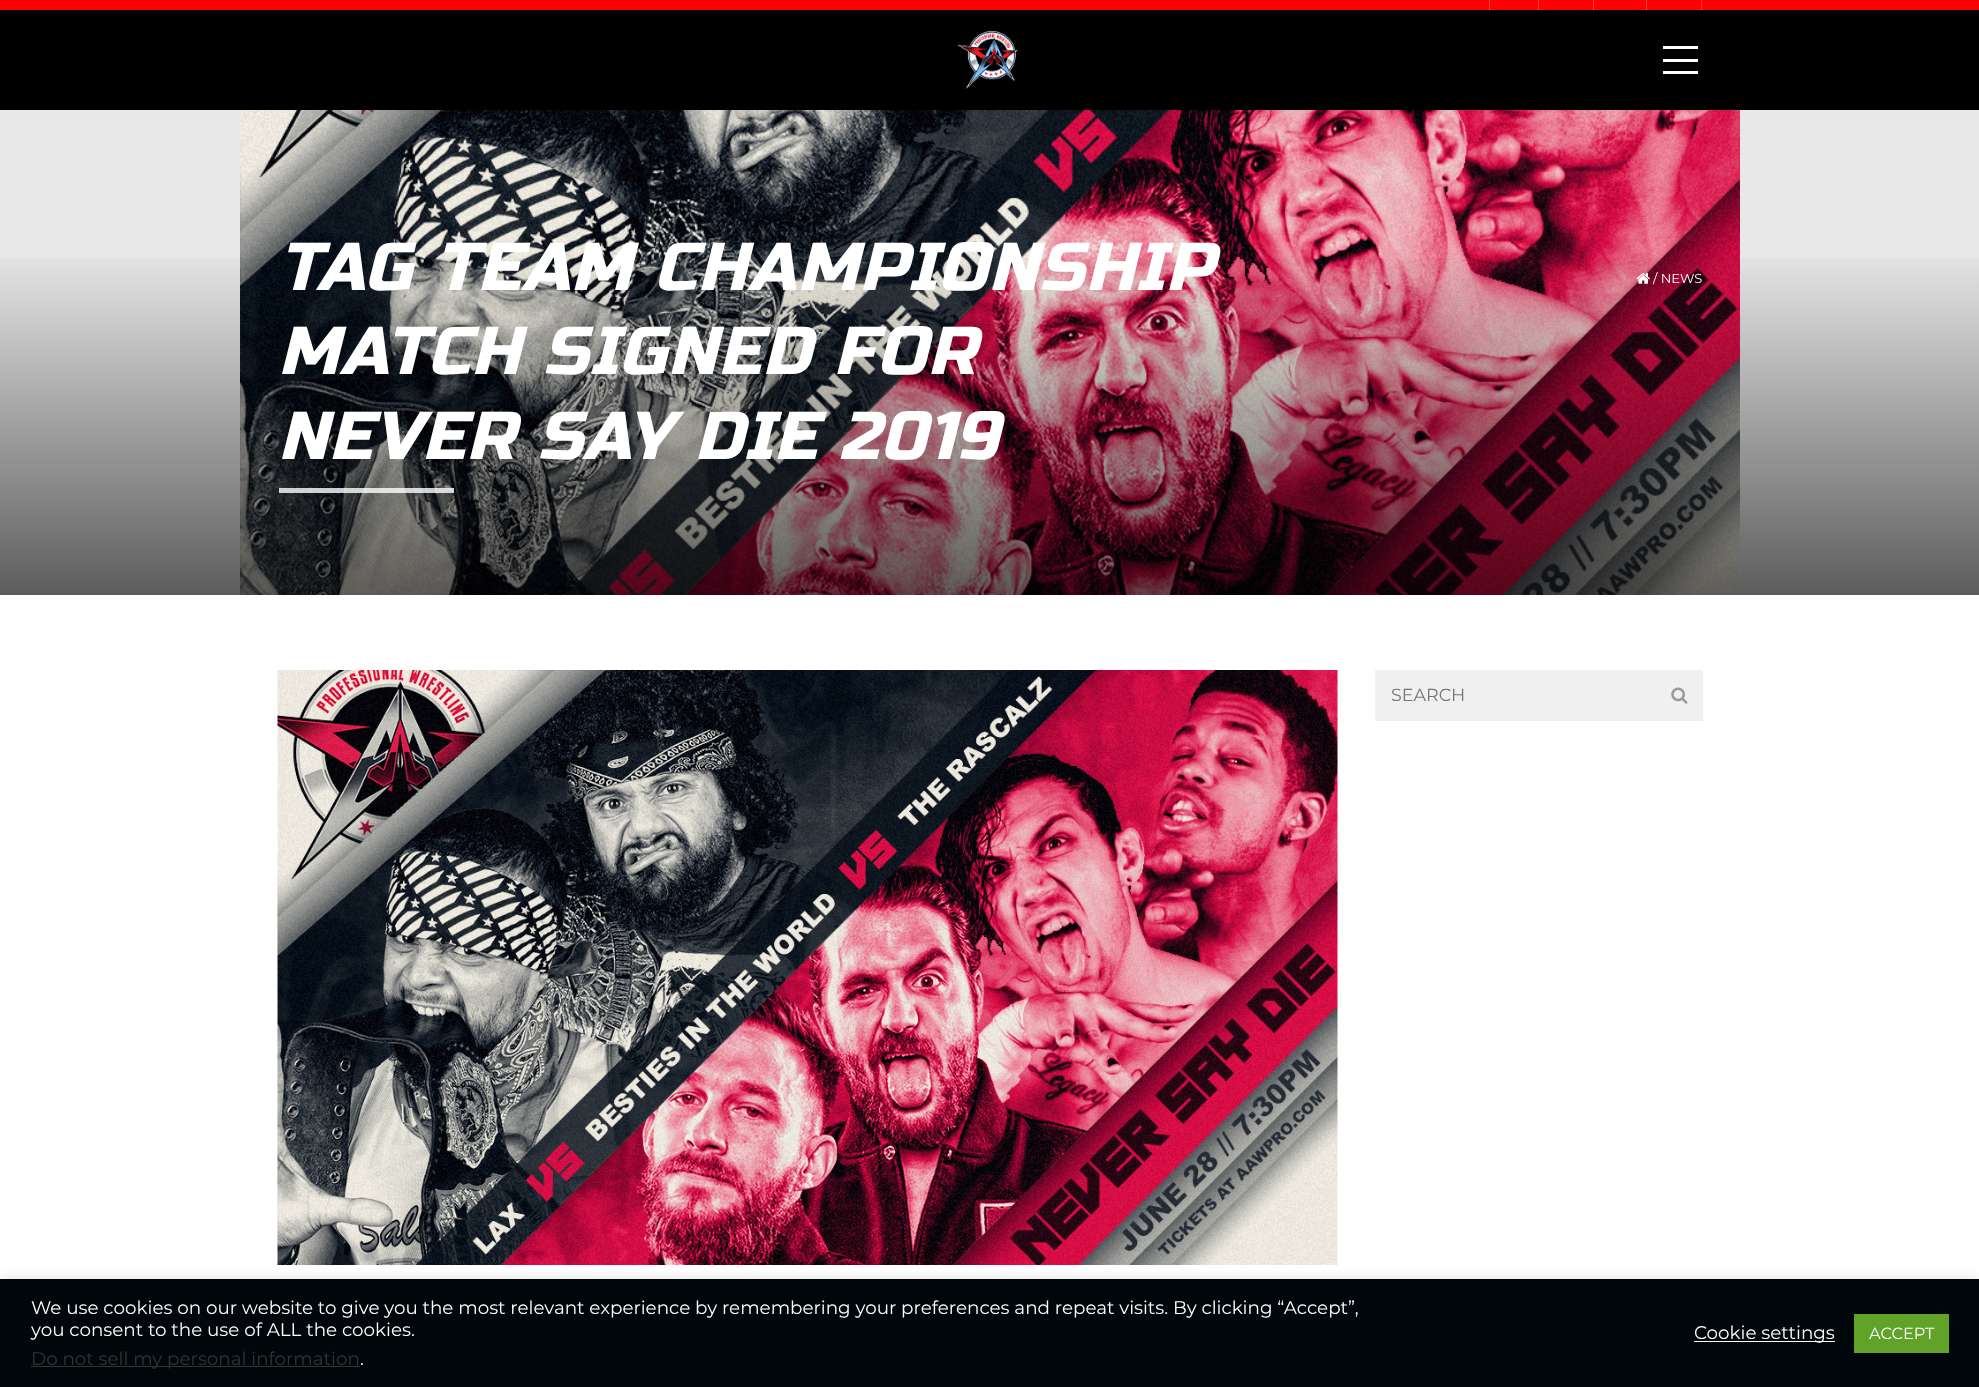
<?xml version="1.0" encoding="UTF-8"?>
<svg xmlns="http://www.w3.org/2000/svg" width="1979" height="1387">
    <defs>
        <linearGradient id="g1" gradientUnits="userSpaceOnUse" x1="990" y1="245" x2="990" y2="595"><stop offset="0" stop-color="#000000" stop-opacity="0"/><stop offset="1" stop-color="#000000" stop-opacity="0.6"/></linearGradient>
        <filter id="blur1" x="-50%" y="-200%" width="200%" height="500%"><feGaussianBlur stdDeviation="6"/></filter>
    </defs>
    <rect width="100%" height="100%" fill="#FFFFFF"/>
    <rect x="0" y="0" width="1979" height="10" fill="#FF0000"/>
    <rect x="1489" y="0" width="1" height="10" fill="#FF4242"/>
    <rect x="1538" y="0" width="1" height="10" fill="#FF4242"/>
    <rect x="1593" y="0" width="1" height="10" fill="#FF4242"/>
    <rect x="1701" y="0" width="1" height="10" fill="#FF3333"/>
    <rect x="1646" y="0" width="1" height="10" fill="#FF4242"/>
    <rect x="0" y="10" width="1979" height="100" fill="#000000"/>
    <image x="957" y="30" width="61" height="59" href="img_01.png"/>
    <rect x="1663" y="46" width="35" height="3" fill="#FFFFFF"/>
    <rect x="1663" y="71" width="35" height="3" fill="#FFFFFF"/>
    <rect x="1663" y="59" width="35" height="3" fill="#FFFFFF"/>
    <rect x="0" y="110" width="1979" height="485" fill="#E8E8E8"/>
    <image x="240" y="110" width="1500" height="485" href="img_02.png"/>
    <rect x="0" y="258" width="1979" height="337" fill="url(#g1)"/>
    <text font-family="Russo One" font-size="67.5" font-style="italic" letter-spacing="1.25" fill="#FFFFFF">
        <tspan x="278" y="290">TAG TEAM CHAMPIONSHIP</tspan>
        <tspan x="278" y="374">MATCH SIGNED FOR</tspan>
        <tspan x="278" y="459">NEVER SAY DIE 2019</tspan>
    </text>
    <rect x="279" y="488" width="175" height="5" fill="#FFFFFF" fill-opacity="0.8"/>
    <image x="1636" y="273" width="14" height="11" href="img_03.png"/>
    <text x="1653" y="283" font-family="Montserrat" font-size="13" font-weight="100" fill="#FFFFFF">/ NEWS</text>
    <image x="277" y="670" width="1061" height="595" href="img_04.png"/>
    <rect x="1375" y="670" width="328" height="51" fill="#F0F0F0"/>
    <text x="1391" y="701" font-family="Montserrat" font-size="17.5" font-weight="100" fill="#757575">SEARCH</text>
    <image x="1671" y="687" width="17" height="17" href="img_05.png"/>
    <rect x="0" y="1278" width="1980" height="108" fill="#ACABAB" fill-opacity="0.3" filter="url(#blur1)"/>
    <rect x="0" y="1279" width="1979" height="108" fill="#00070A"/>
    <text font-family="Montserrat" font-size="18.33" font-weight="100" fill="#FFFFFF">
        <tspan x="31" y="1314">We use cookies on our website to give you the most relevant experience by remembering your preferences and repeat visits. By clicking “Accept”,</tspan>
        <tspan x="31" y="1336">you consent to the use of ALL the cookies.</tspan>
    </text>
    <rect x="31" y="1366" width="329" height="1" fill="#333333"/>
    <text x="31" y="1365" font-family="Montserrat" font-size="18.33" font-weight="100" fill="#333333">Do not sell my personal information</text>
    <text x="360" y="1365" font-family="Montserrat" font-size="18.33" font-weight="100" fill="#FFFFFF">.</text>
    <rect x="1694" y="1341" width="141" height="1" fill="#FFFFFF"/>
    <text x="1694" y="1339" font-family="Montserrat" font-size="18.33" font-weight="100" fill="#FFFFFF">Cookie settings</text>
    <rect x="1854" y="1314" width="95" height="39" fill="#61A229"/>
    <text x="1869" y="1339" font-family="Montserrat" font-size="16.25" font-weight="100" fill="#FFFFFF">ACCEPT</text>
</svg>
